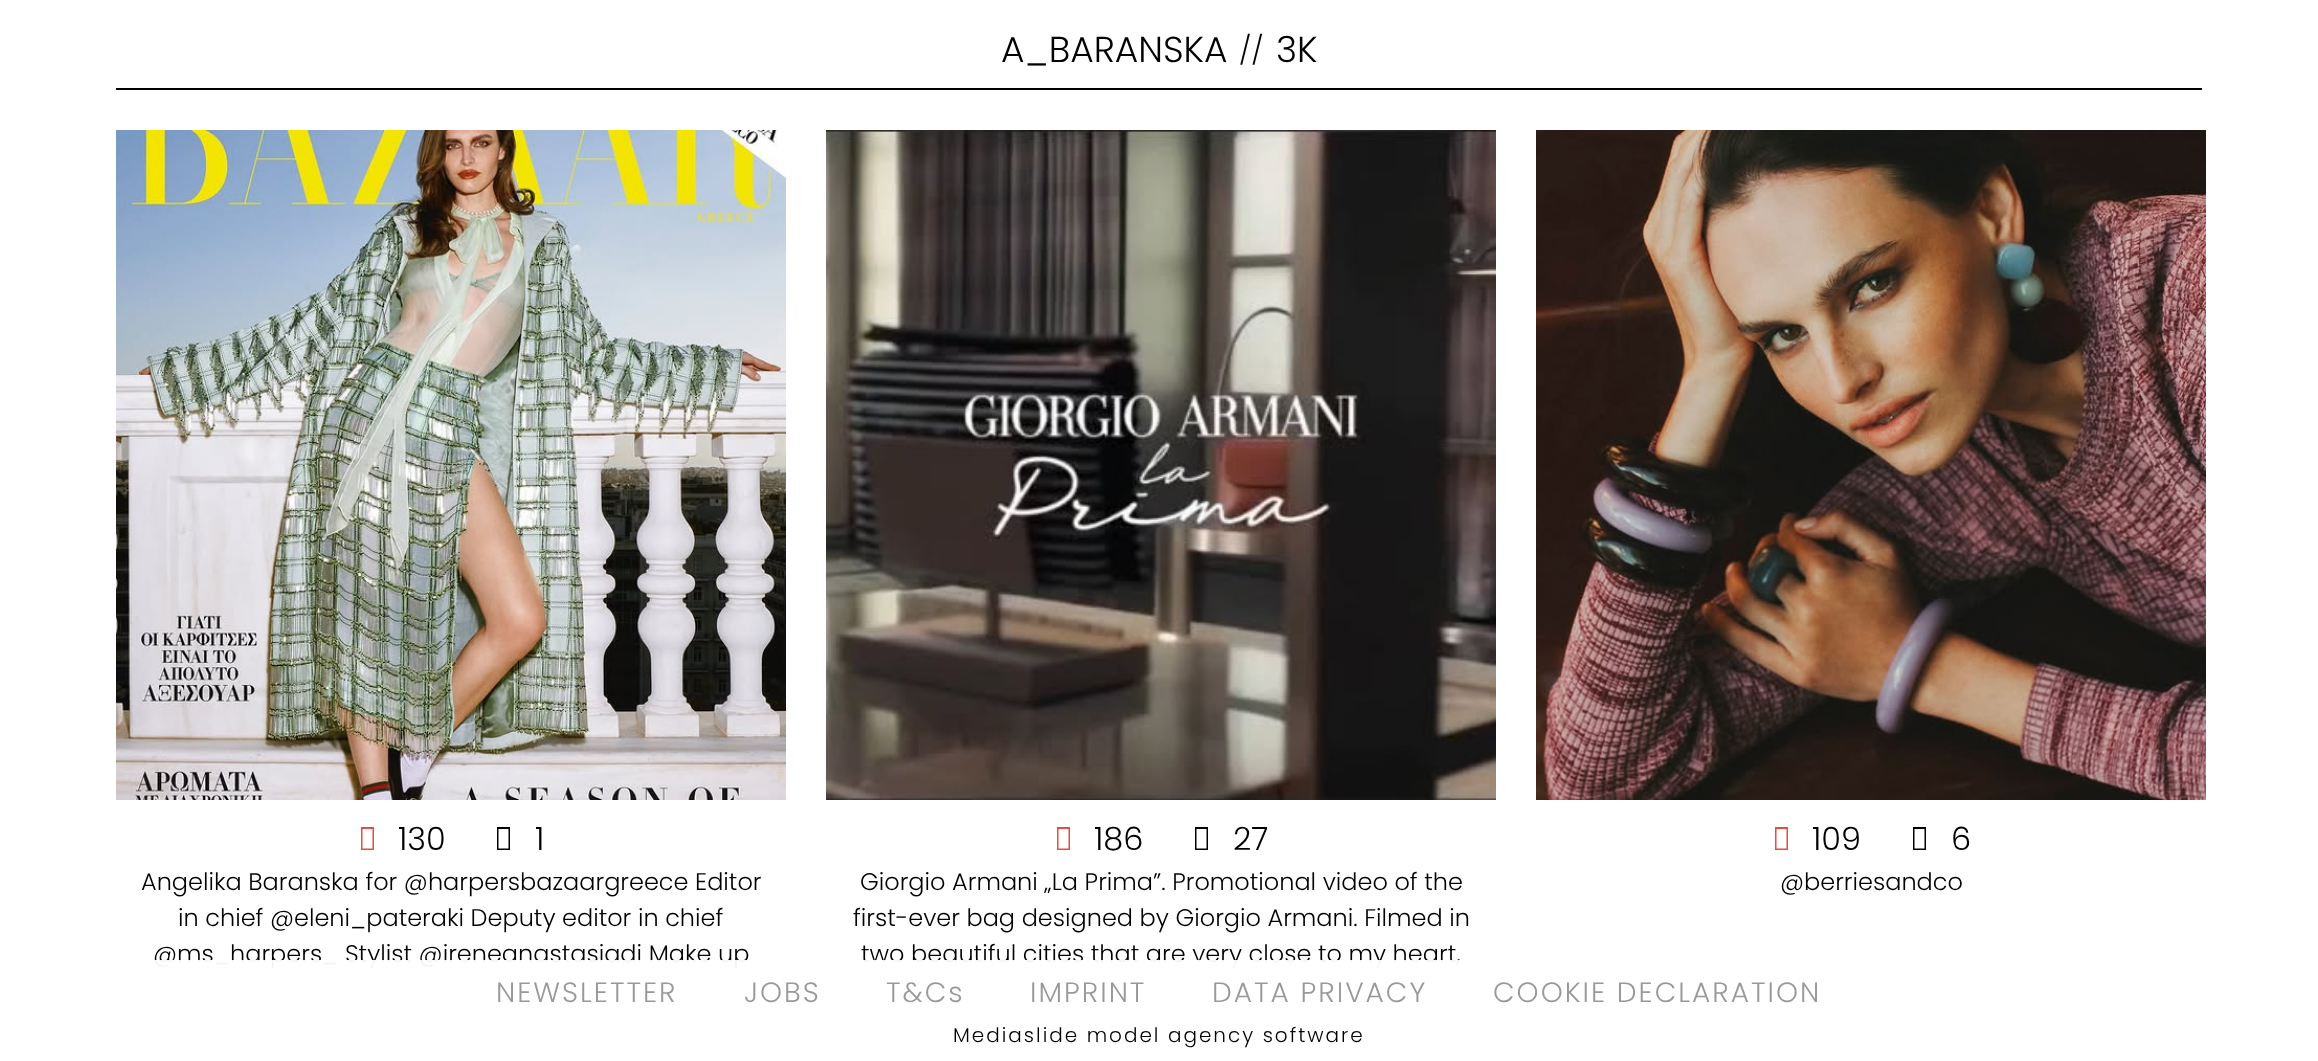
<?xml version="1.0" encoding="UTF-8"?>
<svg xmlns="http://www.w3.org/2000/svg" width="2318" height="1061">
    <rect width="100%" height="100%" fill="#FFFFFF"/>
    <rect x="116" y="88" width="2086" height="2" fill="#000000"/>
    <text x="1001" y="62" font-family="Poppins" font-size="36" font-weight="300" fill="#000000">A_BARANSKA</text>
    <text x="1239" y="60" font-family="Poppins" font-size="28" font-weight="300" fill="#000000">//</text>
    <text x="1276" y="62" font-family="Poppins" font-size="36" font-weight="300" fill="#000000">3K</text>
    <image x="116" y="130" width="670" height="670" href="img_01.png"/>
    <path d="M 361 850 V 827 H 374 V 850 Z M 362.5 848.5 H 372.5 V 829 H 362.5 Z" fill="#E74C3C"/>
    <text x="398" y="850" font-family="Poppins" font-size="32" font-weight="300" fill="#000000">130</text>
    <path d="M 497 850 V 827 H 510 V 850 Z M 498.5 848.5 H 508.5 V 829 H 498.5 Z" fill="#000000"/>
    <text x="535" y="850" font-family="Poppins" font-size="32" font-weight="300" fill="#000000">1</text>
    <text x="141" y="890" font-family="Poppins" font-size="24" font-weight="300" fill="#000000">Angelika Baranska for @harpersbazaargreece Editor</text>
    <text x="178" y="926" font-family="Poppins" font-size="24" font-weight="300" fill="#000000">in chief @eleni_pateraki Deputy editor in chief</text>
    <text x="153" y="962" font-family="Poppins" font-size="24" font-weight="300" fill="#000000">@ms_harpers_ Stylist @ireneanastasiadi Make up</text>
    <image x="826" y="130" width="670" height="670" href="img_02.png"/>
    <path d="M 1057 850 V 827 H 1070 V 850 Z M 1058.5 848.5 H 1068.5 V 829 H 1058.5 Z" fill="#E74C3C"/>
    <text x="1094" y="850" font-family="Poppins" font-size="32" font-weight="300" fill="#000000">186</text>
    <path d="M 1195 850 V 827 H 1208 V 850 Z M 1196.5 848.5 H 1206.5 V 829 H 1196.5 Z" fill="#000000"/>
    <text x="1233" y="850" font-family="Poppins" font-size="32" font-weight="300" fill="#000000">27</text>
    <text x="860" y="890" font-family="Poppins" font-size="24" font-weight="300" fill="#000000">Giorgio Armani „La Prima”. Promotional video of the</text>
    <text x="853" y="926" font-family="Poppins" font-size="24" font-weight="300" fill="#000000">first-ever bag designed by Giorgio Armani. Filmed in</text>
    <text x="861" y="962" font-family="Poppins" font-size="24" font-weight="300" fill="#000000">two beautiful cities that are very close to my heart,</text>
    <image x="1536" y="130" width="670" height="670" href="img_03.png"/>
    <path d="M 1775 850 V 827 H 1788 V 850 Z M 1776.5 848.5 H 1786.5 V 829 H 1776.5 Z" fill="#E74C3C"/>
    <text x="1812" y="850" font-family="Poppins" font-size="32" font-weight="300" fill="#000000">109</text>
    <path d="M 1913 850 V 827 H 1926 V 850 Z M 1914.5 848.5 H 1924.5 V 829 H 1914.5 Z" fill="#000000"/>
    <text x="1951" y="850" font-family="Poppins" font-size="32" font-weight="300" fill="#000000">6</text>
    <text x="1780" y="890" font-family="Poppins" font-size="24" font-weight="300" fill="#000000">@berriesandco</text>
    <rect x="154" y="960" width="1306" height="9" fill="#FFFFFF" fill-opacity="0.95"/>
    <text x="496" y="1002" font-family="Poppins" font-size="28" font-weight="300" letter-spacing="2" fill="#999999">NEWSLETTER</text>
    <text x="744" y="1002" font-family="Poppins" font-size="28" font-weight="300" letter-spacing="2" fill="#999999">JOBS</text>
    <text x="886" y="1002" font-family="Poppins" font-size="28" font-weight="300" letter-spacing="2" fill="#999999">T&amp;Cs</text>
    <text x="1030" y="1002" font-family="Poppins" font-size="28" font-weight="300" letter-spacing="2" fill="#999999">IMPRINT</text>
    <text x="1212" y="1002" font-family="Poppins" font-size="28" font-weight="300" letter-spacing="2" fill="#999999">DATA PRIVACY</text>
    <text x="1493" y="1002" font-family="Poppins" font-size="28" font-weight="300" letter-spacing="2" fill="#999999">COOKIE DECLARATION</text>
    <text x="953" y="1042" font-family="Poppins" font-size="20" font-weight="300" letter-spacing="2" fill="#000000">Mediaslide model agency software</text>
</svg>
